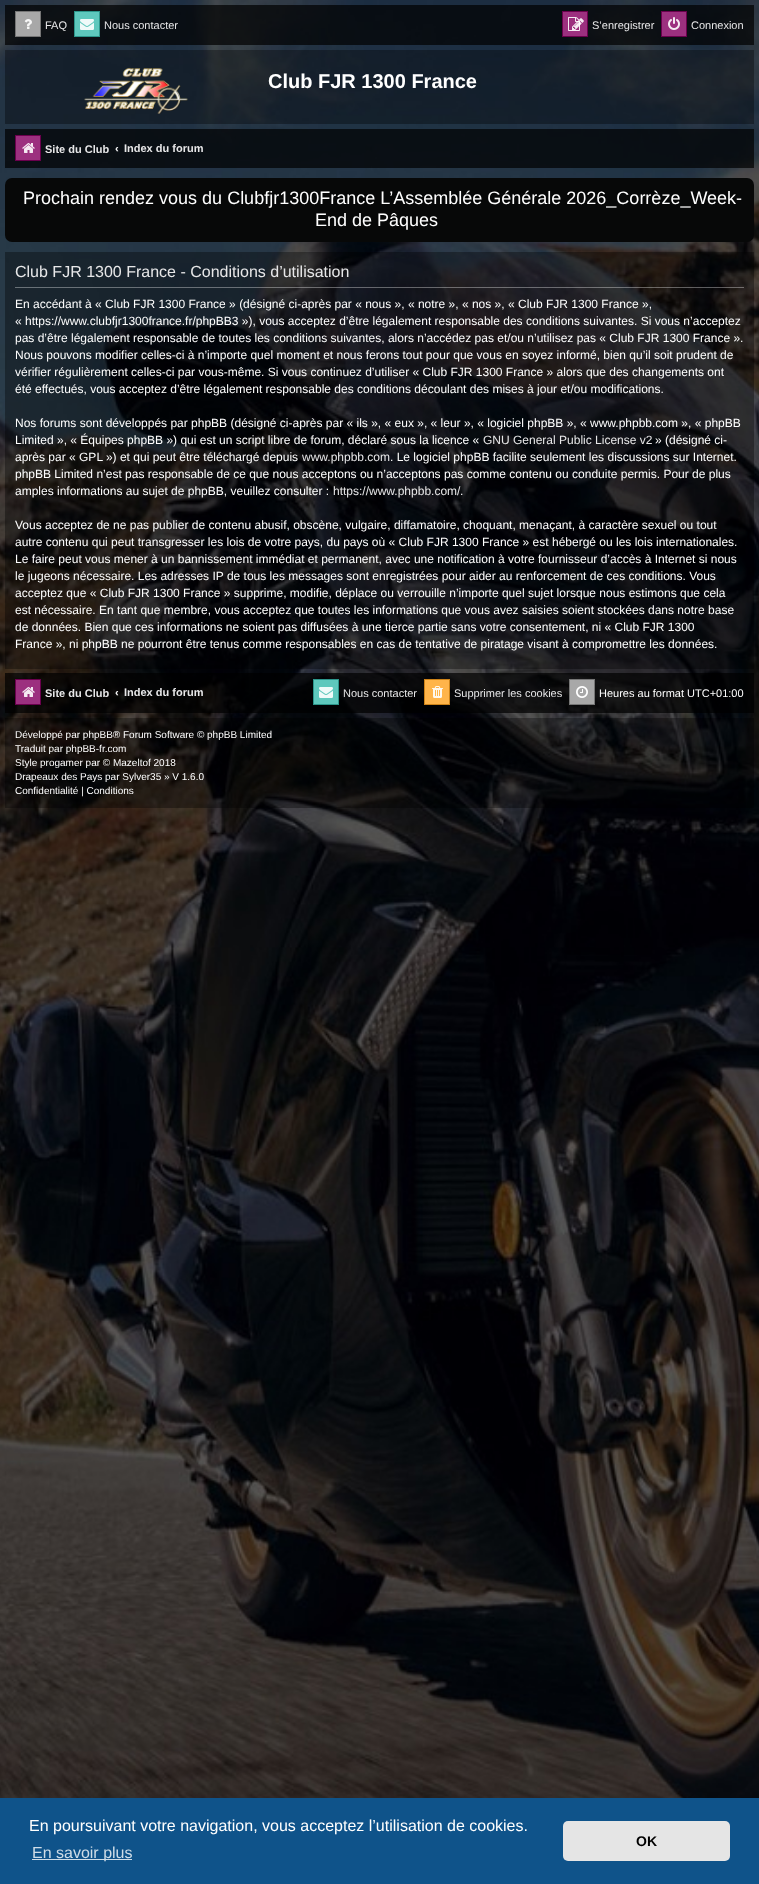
<?xml version="1.0" encoding="UTF-8"?>
<svg xmlns="http://www.w3.org/2000/svg" width="759" height="1884">
    <rect width="100%" height="100%" fill="#FFFFFF"/>
    <image x="0" y="808" width="759" height="990" href="img_01.png"/>
    <image x="0" y="0" width="759" height="808" href="img_02.png"/>
    <rect x="5" y="5" width="749" height="40" fill="#000000" fill-opacity="0.7"/>
    <rect x="15.5" y="11.5" width="25" height="25" fill="#A8A8A8" stroke="#767676"/>
    <image x="24" y="19" width="8" height="10" href="img_03.png"/>
    <text x="45" y="29" font-family="Liberation Sans" font-size="11" fill="#E7E7E8">FAQ</text>
    <rect x="74.5" y="11.5" width="25" height="25" fill="#5EC8BD" stroke="#2C968B"/>
    <image x="80" y="19" width="14" height="11" href="img_04.png"/>
    <text x="104" y="29" font-family="Liberation Sans" font-size="11" fill="#E7E7E8">Nous contacter</text>
    <rect x="562.5" y="11.5" width="25" height="25" fill="#9C307F" stroke="#6A004D"/>
    <image x="572" y="18" width="12" height="12" href="img_06.png"/>
    <image x="568" y="17" width="12" height="14" href="img_05.png"/>
    <text x="592" y="29" font-family="Liberation Sans" font-size="11" fill="#E7E7E8">S’enregistrer</text>
    <rect x="661.5" y="11.5" width="25" height="25" fill="#9C307F" stroke="#6A004D"/>
    <image x="668" y="17" width="12" height="13" href="img_07.png"/>
    <text x="691" y="29" font-family="Liberation Sans" font-size="11" fill="#E7E7E8">Connexion</text>
    <rect x="5" y="50" width="749" height="74" fill="#000000" fill-opacity="0.35"/>
    <image x="84" y="67" width="104" height="47" href="img_08.png"/>
    <text x="268" y="88" font-family="Liberation Sans" font-size="20" font-weight="700" fill="#FFFFFF">Club FJR 1300 France</text>
    <rect x="5" y="129" width="749" height="39" fill="#000000" fill-opacity="0.7"/>
    <rect x="15.5" y="135.5" width="25" height="25" fill="#9C307F" stroke="#6A004D"/>
    <image x="22" y="143" width="13" height="10" href="img_09.png"/>
    <text x="45" y="153" font-family="Liberation Sans" font-size="11" font-weight="700" fill="#E7E7E8">Site du Club</text>
    <text x="115" y="152" font-family="Liberation Sans" font-size="11" font-weight="700" fill="#FFFFFF">‹</text>
    <text x="124" y="152" font-family="Liberation Sans" font-size="11" font-weight="700" fill="#E7E7E8">Index du forum</text>
    <rect x="5" y="178" width="749" height="64" rx="7" fill="#070808"/>
    <text x="23" y="204" font-family="Liberation Sans" font-size="18" fill="#FFFFFF">Prochain rendez vous du Clubfjr1300France L’Assemblée Générale 2026_Corrèze_Week-</text>
    <text x="315" y="226" font-family="Liberation Sans" font-size="18" fill="#FFFFFF">End de Pâques</text>
    <rect x="5" y="252" width="749" height="417" fill="#000000" fill-opacity="0.35"/>
    <rect x="15" y="287" width="729" height="1" fill="#FFFFFF" fill-opacity="0.35"/>
    <text x="15" y="277" font-family="Liberation Sans" font-size="16" fill="#E7E7E8">Club FJR 1300 France - Conditions d’utilisation</text>
    <text font-family="Liberation Sans" font-size="12" fill="#FFFFFF">
        <tspan x="15" y="308">En accédant à « Club FJR 1300 France » (désigné ci-après par « nous », « notre », « nos », « Club FJR 1300 France »,</tspan>
        <tspan x="15" y="325">« https://www.clubfjr1300france.fr/phpBB3 »), vous acceptez d’être légalement responsable des conditions suivantes. Si vous n’acceptez</tspan>
        <tspan x="15" y="342">pas d’être légalement responsable de toutes les conditions suivantes, alors n’accédez pas et/ou n’utilisez pas « Club FJR 1300 France ».</tspan>
        <tspan x="15" y="359">Nous pouvons modifier celles-ci à n’importe quel moment et nous ferons tout pour que vous en soyez informé, bien qu’il soit prudent de</tspan>
        <tspan x="15" y="376">vérifier régulièrement celles-ci par vous-même. Si vous continuez d’utiliser « Club FJR 1300 France » alors que des changements ont</tspan>
        <tspan x="15" y="393">été effectués, vous acceptez d’être légalement responsable des conditions découlant des mises à jour et/ou modifications.</tspan>
    </text>
    <text font-family="Liberation Sans" font-size="12" fill="#FFFFFF">
        <tspan x="15" y="427">Nos forums sont développés par phpBB (désigné ci-après par « ils », « eux », « leur », « logiciel phpBB », « www.phpbb.com », « phpBB</tspan>
        <tspan x="15" y="444">Limited », « Équipes phpBB ») qui est un script libre de forum, déclaré sous la licence «</tspan>
    </text>
    <text x="483" y="444" font-family="Liberation Sans" font-size="12" fill="#E7E7E8">GNU General Public License v2</text>
    <text x="655" y="444" font-family="Liberation Sans" font-size="12" fill="#FFFFFF">» (désigné ci-</text>
    <text x="15" y="461" font-family="Liberation Sans" font-size="12" fill="#FFFFFF">après par « GPL ») et qui peut être téléchargé depuis</text>
    <text x="302" y="461" font-family="Liberation Sans" font-size="12" fill="#E7E7E8">www.phpbb.com</text>
    <text x="390" y="461" font-family="Liberation Sans" font-size="12" fill="#FFFFFF">. Le logiciel phpBB facilite seulement les discussions sur Internet.</text>
    <text font-family="Liberation Sans" font-size="12" fill="#FFFFFF">
        <tspan x="15" y="478">phpBB Limited n’est pas responsable de ce que nous acceptons ou n’acceptons pas comme contenu ou conduite permis. Pour de plus</tspan>
        <tspan x="15" y="495">amples informations au sujet de phpBB, veuillez consulter :</tspan>
    </text>
    <text x="333" y="495" font-family="Liberation Sans" font-size="12" fill="#E7E7E8">https://www.phpbb.com/</text>
    <text x="460" y="495" font-family="Liberation Sans" font-size="12" fill="#FFFFFF">.</text>
    <text font-family="Liberation Sans" font-size="12" fill="#FFFFFF">
        <tspan x="15" y="529">Vous acceptez de ne pas publier de contenu abusif, obscène, vulgaire, diffamatoire, choquant, menaçant, à caractère sexuel ou tout</tspan>
        <tspan x="15" y="546">autre contenu qui peut transgresser les lois de votre pays, du pays où « Club FJR 1300 France » est hébergé ou les lois internationales.</tspan>
        <tspan x="15" y="563">Le faire peut vous mener à un bannissement immédiat et permanent, avec une notification à votre fournisseur d’accès à Internet si nous</tspan>
        <tspan x="15" y="580">le jugeons nécessaire. Les adresses IP de tous les messages sont enregistrées pour aider au renforcement de ces conditions. Vous</tspan>
        <tspan x="15" y="597">acceptez que « Club FJR 1300 France » supprime, modifie, déplace ou verrouille n’importe quel sujet lorsque nous estimons que cela</tspan>
        <tspan x="15" y="614">est nécessaire. En tant que membre, vous acceptez que toutes les informations que vous avez saisies soient stockées dans notre base</tspan>
        <tspan x="15" y="631">de données. Bien que ces informations ne soient pas diffusées à une tierce partie sans votre consentement, ni « Club FJR 1300</tspan>
        <tspan x="15" y="648">France », ni phpBB ne pourront être tenus comme responsables en cas de tentative de piratage visant à compromettre les données.</tspan>
    </text>
    <rect x="5" y="673" width="749" height="40" fill="#000000" fill-opacity="0.7"/>
    <rect x="15.5" y="679.5" width="25" height="25" fill="#9C307F" stroke="#6A004D"/>
    <image x="22" y="687" width="13" height="10" href="img_09.png"/>
    <text x="45" y="697" font-family="Liberation Sans" font-size="11" font-weight="700" fill="#E7E7E8">Site du Club</text>
    <text x="115" y="696" font-family="Liberation Sans" font-size="11" font-weight="700" fill="#FFFFFF">‹</text>
    <text x="124" y="696" font-family="Liberation Sans" font-size="11" font-weight="700" fill="#E7E7E8">Index du forum</text>
    <rect x="313.5" y="679.5" width="25" height="25" fill="#5EC8BD" stroke="#2C968B"/>
    <image x="319" y="687" width="14" height="11" href="img_04.png"/>
    <text x="343" y="697" font-family="Liberation Sans" font-size="11" fill="#E7E7E8">Nous contacter</text>
    <rect x="424.5" y="679.5" width="25" height="25" fill="#FFB44A" stroke="#CD8218"/>
    <image x="432" y="686" width="11" height="12" href="img_10.png"/>
    <text x="454" y="697" font-family="Liberation Sans" font-size="11" fill="#E7E7E8">Supprimer les cookies</text>
    <rect x="569.5" y="679.5" width="25" height="25" fill="#A8A8A8" stroke="#767676"/>
    <image x="576" y="686" width="12" height="12" href="img_11.png"/>
    <text x="599" y="697" font-family="Liberation Sans" font-size="11" fill="#FFFFFF">Heures au format UTC+01:00</text>
    <rect x="5" y="718" width="749" height="90" fill="#000000" fill-opacity="0.35"/>
    <text font-family="Liberation Sans" font-size="10" fill="#FFFFFF">
        <tspan x="15" y="738">Développé par phpBB® Forum Software © phpBB Limited</tspan>
        <tspan x="15" y="752">Traduit par phpBB-fr.com</tspan>
        <tspan x="15" y="766">Style progamer par © Mazeltof 2018</tspan>
        <tspan x="15" y="780">Drapeaux des Pays par Sylver35 » V 1.6.0</tspan>
        <tspan x="15" y="794">Confidentialité | Conditions</tspan>
    </text>
    <rect x="0" y="1798" width="759" height="86" fill="#0F538A"/>
    <text x="29" y="1831" font-family="Liberation Sans" font-size="16" fill="#FFFFFF">En poursuivant votre navigation, vous acceptez l’utilisation de cookies.</text>
    <rect x="32" y="1859" width="100" height="1" fill="#CFDDE8"/>
    <text x="32" y="1858" font-family="Liberation Sans" font-size="16" fill="#CFDDE8">En savoir plus</text>
    <rect x="563" y="1821" width="167" height="40" rx="5" fill="#E5E5E5"/>
    <text x="636" y="1846" font-family="Liberation Sans" font-size="14" font-weight="700" fill="#000000">OK</text>
</svg>
